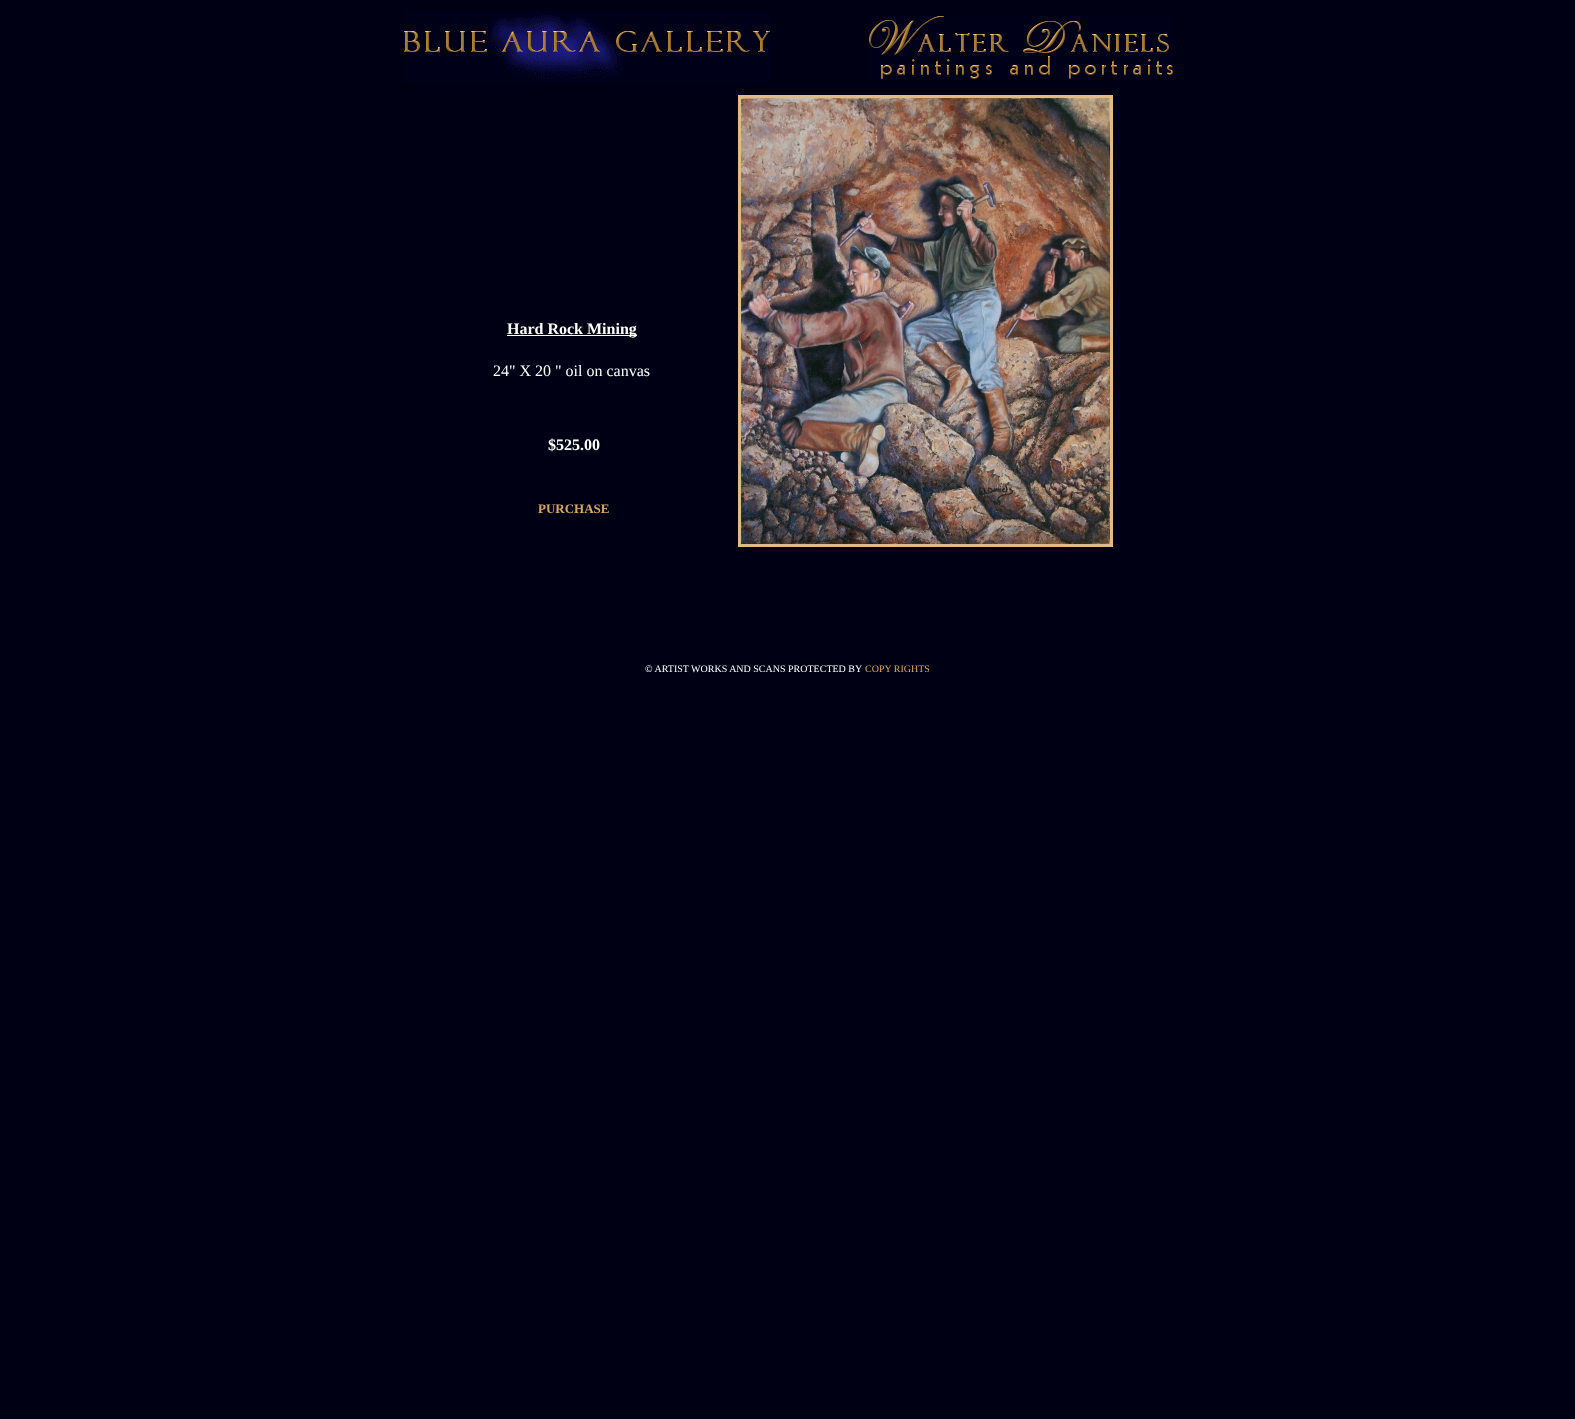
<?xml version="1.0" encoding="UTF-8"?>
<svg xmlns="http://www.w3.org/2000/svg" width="1575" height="1419">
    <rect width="100%" height="100%" fill="#000015"/>
    <image x="404" y="10" width="366" height="73" href="img_01.png"/>
    <image x="869" y="16" width="304" height="63" href="img_02.png"/>
    <rect x="507" y="335" width="130" height="1" fill="#FFFFFF"/>
    <text x="507" y="334" font-family="Liberation Serif" font-size="16" font-weight="700" fill="#FFFFFF">Hard Rock Mining</text>
    <image x="738" y="95" width="375" height="452" href="img_03.png"/>
    <text x="493" y="376" font-family="Liberation Serif" font-size="16" fill="#FFFFFF">24" X 20 " oil on canvas</text>
    <text x="548" y="450" font-family="Liberation Serif" font-size="16" font-weight="700" fill="#FFFFFF">$525.00</text>
    <text x="538" y="513" font-family="Liberation Serif" font-size="13" font-weight="700" fill="#D8A65E">PURCHASE</text>
    <text x="645" y="672" font-family="Liberation Serif" font-size="10" fill="#FFFFFF">© ARTIST WORKS AND SCANS PROTECTED BY</text>
    <text x="865" y="672" font-family="Liberation Serif" font-size="10" fill="#D8A65E">COPY RIGHTS</text>
</svg>
